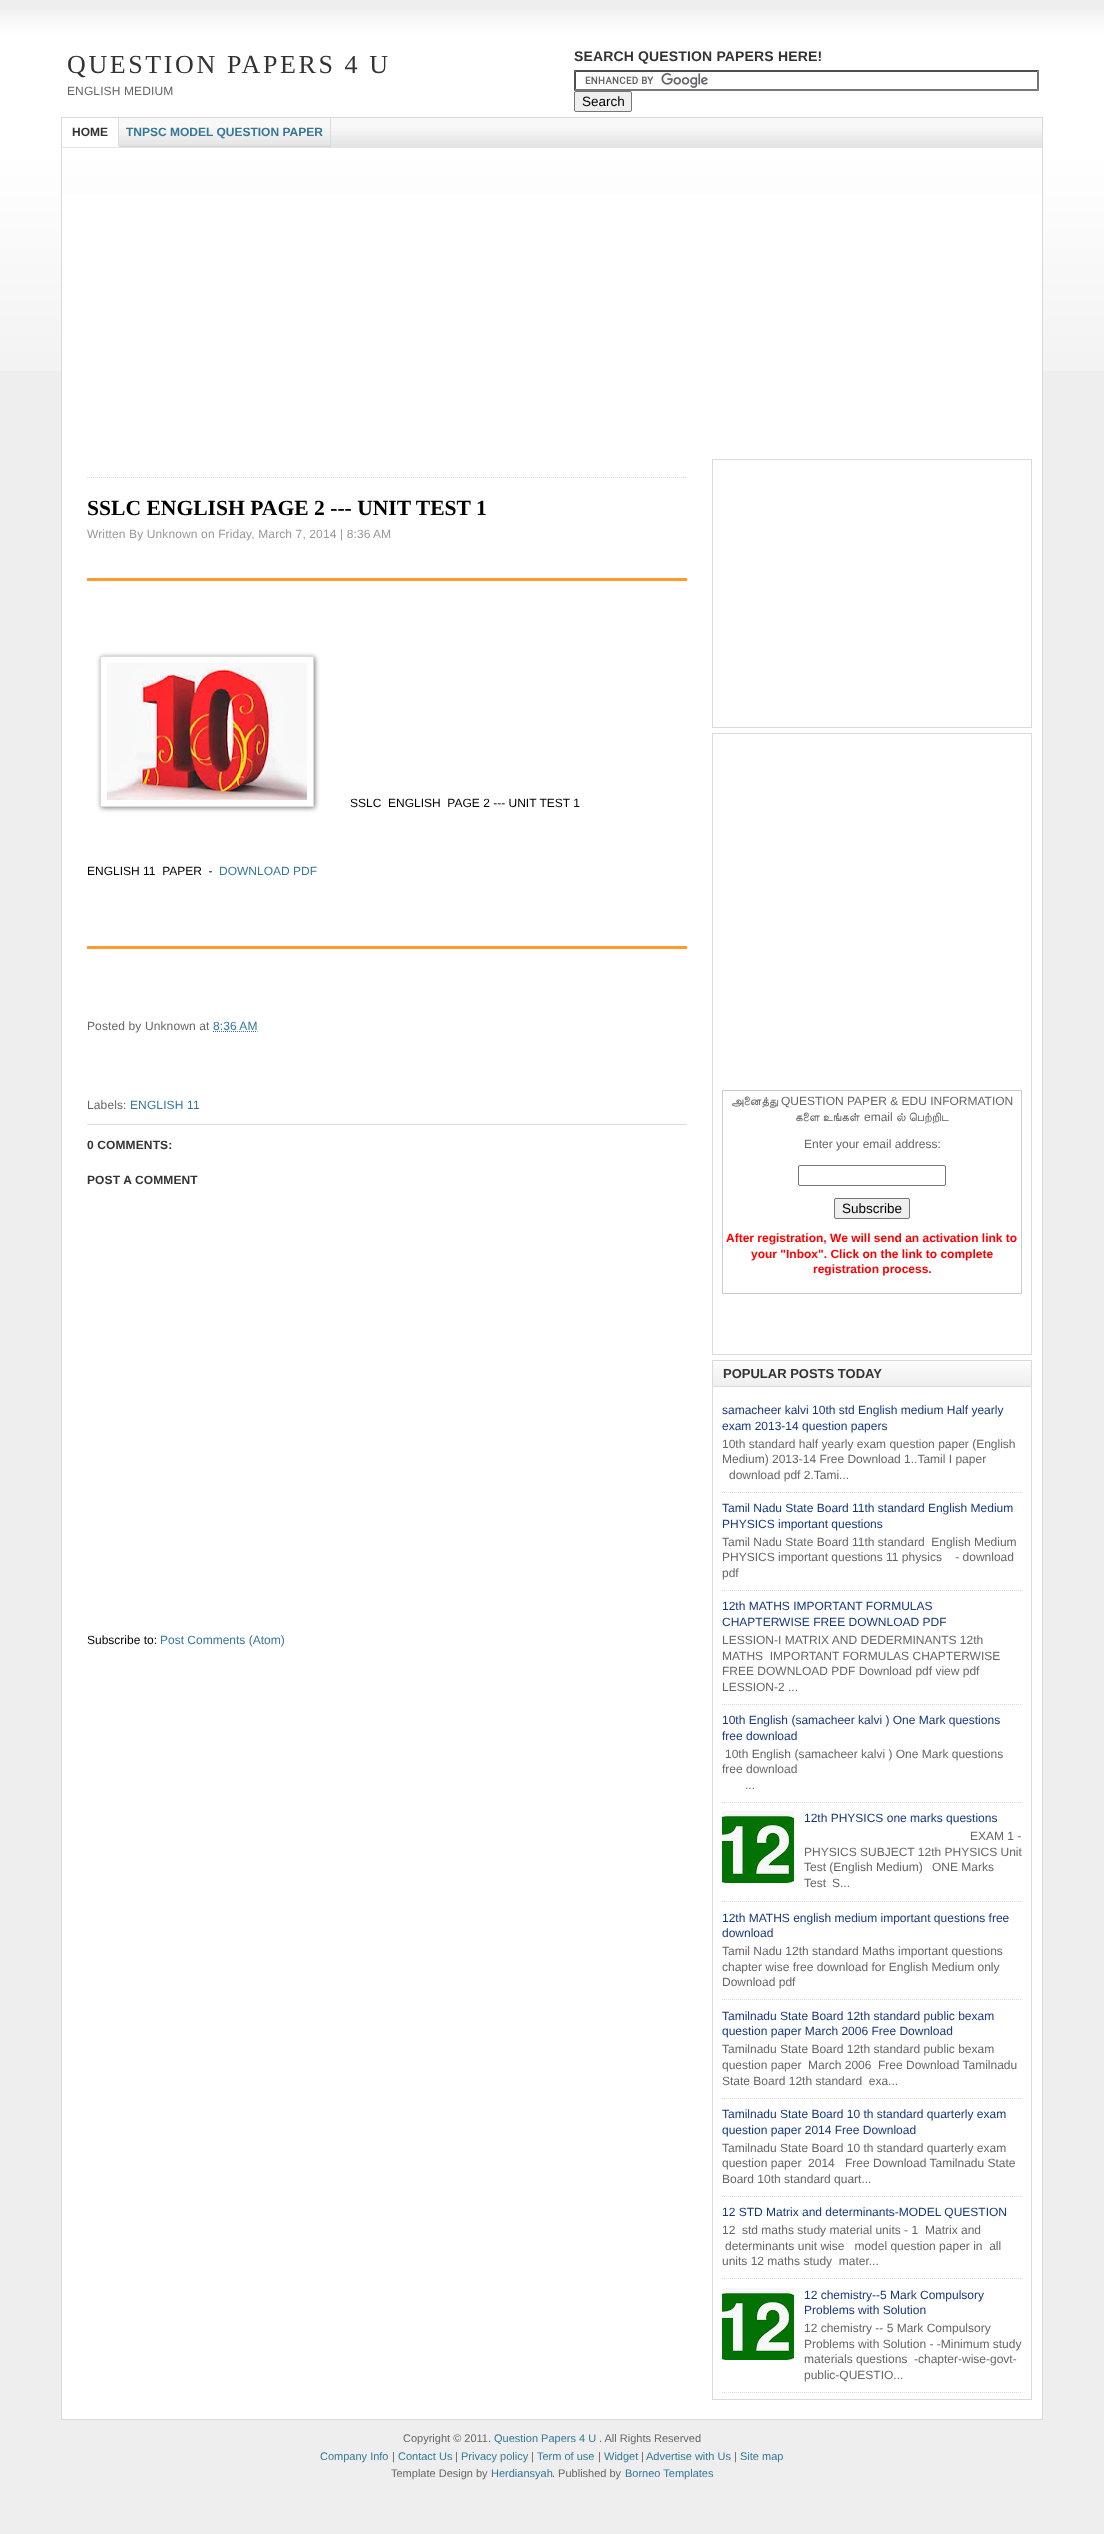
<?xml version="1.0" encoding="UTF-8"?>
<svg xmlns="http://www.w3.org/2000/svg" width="1104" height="2534">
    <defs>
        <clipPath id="clip1"><path d="M 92 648 H 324 V 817 H 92 Z M 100 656 H 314 V 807 H 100 Z" clip-rule="evenodd"/></clipPath>
        <filter id="blur1" x="-50%" y="-200%" width="200%" height="500%"><feGaussianBlur stdDeviation="2.5"/></filter>
    </defs>
    <rect width="100%" height="100%" fill="#EEEEEE"/>
    <image x="0" y="10" width="1104" height="361" href="img_01.png"/>
    <text x="67" y="73" font-family="Liberation Serif" font-size="26" letter-spacing="2.6" fill="#333333">QUESTION PAPERS 4 U</text>
    <text x="67" y="95" font-family="Liberation Sans" font-size="12" letter-spacing="0.12" fill="#666666">ENGLISH MEDIUM</text>
    <text x="574" y="61" font-family="Liberation Sans" font-size="14" font-weight="700" letter-spacing="0.15" fill="#333333">SEARCH QUESTION PAPERS HERE!</text>
    <image x="585" y="73" width="123" height="15" href="img_02.png"/>
    <path d="M 574 70 H 1039 L 1037 72 H 576 Z" fill="#4F4F4F"/>
    <path d="M 1039 70 V 91 L 1037 89 V 72 Z" fill="#767676"/>
    <path d="M 1039 91 H 574 L 576 89 H 1037 Z" fill="#767676"/>
    <path d="M 574 91 V 70 L 576 72 V 89 Z" fill="#4F4F4F"/>
    <rect x="574.5" y="91.5" width="57" height="20" rx="1.5" fill="#EFEFEF" stroke="#767676"/>
    <text x="582" y="106" font-family="Liberation Sans" font-size="13.5" fill="#000000">Search</text>
    <image x="62" y="118" width="980" height="30" href="img_03.png"/>
    <rect x="61" y="117" width="982" height="1" fill="#DCD9D9"/>
    <rect x="1042" y="117" width="1" height="2303" fill="#DCD9D9"/>
    <rect x="61" y="117" width="1" height="31" fill="#DCD9D9"/>
    <rect x="62" y="118" width="56" height="28" fill="#FFFFFF"/>
    <rect x="118" y="118" width="1" height="29" fill="#DADCDE"/>
    <rect x="62" y="146" width="57" height="1" fill="#FFFFFF"/>
    <text x="72" y="136" font-family="Liberation Sans" font-size="12" font-weight="700" fill="#333333">HOME</text>
    <rect x="330" y="118" width="1" height="29" fill="#DADCDE"/>
    <rect x="119" y="146" width="212" height="1" fill="#D2D4D6"/>
    <text x="126" y="136" font-family="Liberation Sans" font-size="12" font-weight="700" fill="#357798">TNPSC MODEL QUESTION PAPER</text>
    <rect x="62" y="195" width="980" height="2224" fill="#FFFFFF"/>
    <rect x="61" y="2419" width="982" height="1" fill="#DCD9D9"/>
    <rect x="61" y="148" width="1" height="2272" fill="#DCD9D9"/>
    <path d="M 87 477.5 H 687" fill="none" stroke="#DCD9D9" stroke-dasharray="1 1"/>
    <rect x="87" y="1124" width="600" height="1" fill="#DCD9D9"/>
    <text x="87" y="515" font-family="Liberation Serif" font-size="21.6" font-weight="700" fill="#000000">SSLC ENGLISH PAGE 2 --- UNIT TEST 1</text>
    <text x="87" y="538" font-family="Liberation Sans" font-size="12" letter-spacing="0.12" fill="#999999">Written By Unknown on Friday, March 7, 2014 | 8:36 AM</text>
    <rect x="87" y="578" width="600" height="3" fill="#FE9A2E"/>
    <g clip-path="url(#clip1)">
        <rect x="101" y="657" width="214" height="151" fill="#000000" fill-opacity="0.5" filter="url(#blur1)"/>
    </g>
    <rect x="100.5" y="656.5" width="213" height="150" fill="none" stroke="#DCD9D9"/>
    <image x="107" y="663" width="200" height="137" href="img_04.png"/>
    <text x="350" y="807" font-family="Liberation Sans" font-size="12" fill="#000000" xml:space="preserve">SSLC  ENGLISH  PAGE 2 --- UNIT TEST 1</text>
    <text x="87" y="875" font-family="Liberation Sans" font-size="12" fill="#000000" xml:space="preserve">ENGLISH 11  PAPER  -</text>
    <text x="219" y="875" font-family="Liberation Sans" font-size="12" fill="#357798">DOWNLOAD PDF</text>
    <rect x="87" y="946" width="600" height="3" fill="#FE9A2E"/>
    <text x="87" y="1030" font-family="Liberation Sans" font-size="12" letter-spacing="0.12" fill="#666666">Posted by Unknown at</text>
    <text x="213" y="1030" font-family="Liberation Sans" font-size="12" letter-spacing="0.12" fill="#357798">8:36 AM</text>
    <path d="M 213 1031.5 H 257.5" fill="none" stroke="#357798" stroke-dasharray="1 1"/>
    <text x="87" y="1109" font-family="Liberation Sans" font-size="12" letter-spacing="0.12" fill="#666666">Labels:</text>
    <text x="130" y="1109" font-family="Liberation Sans" font-size="12" letter-spacing="0.12" fill="#357798">ENGLISH 11</text>
    <text x="87" y="1149" font-family="Liberation Sans" font-size="12" font-weight="700" letter-spacing="0.12" fill="#333333">0 COMMENTS:</text>
    <text x="87" y="1184" font-family="Liberation Sans" font-size="12" font-weight="700" letter-spacing="0.12" fill="#333333">POST A COMMENT</text>
    <text x="87" y="1644" font-family="Liberation Sans" font-size="12" fill="#000000">Subscribe to:</text>
    <text x="160" y="1644" font-family="Liberation Sans" font-size="12" fill="#357798">Post Comments (Atom)</text>
    <rect x="712.5" y="459.5" width="319" height="268" fill="none" stroke="#DCD9D9"/>
    <rect x="712.5" y="733.5" width="319" height="621" fill="none" stroke="#DCD9D9"/>
    <rect x="722.5" y="1090.5" width="299" height="203" fill="none" stroke="#CCCCCC"/>
    <text x="731" y="1105" font-family="FreeSans" font-size="12" fill="#666666">அனைத்து</text>
    <text x="781" y="1105" font-family="Liberation Sans" font-size="12" fill="#666666">QUESTION PAPER &amp; EDU INFORMATION</text>
    <text x="795" y="1121" font-family="FreeSans" font-size="12" fill="#666666">களை உங்கள்</text>
    <text x="864" y="1121" font-family="Liberation Sans" font-size="12" fill="#666666">email</text>
    <text x="896" y="1121" font-family="FreeSans" font-size="12" fill="#666666">ல் பெற்றிட</text>
    <text x="804" y="1148" font-family="Liberation Sans" font-size="12" fill="#666666">Enter your email address:</text>
    <rect x="798.5" y="1165.5" width="147" height="20" rx="1.5" fill="none" stroke="#767676"/>
    <rect x="834.5" y="1198.5" width="75" height="20" rx="1.5" fill="#EFEFEF" stroke="#767676"/>
    <text x="842" y="1213" font-family="Liberation Sans" font-size="13.5" fill="#000000">Subscribe</text>
    <text x="726" y="1242" font-family="Liberation Sans" font-size="12" font-weight="700" fill="#FF0000">After registration, We will send an activation link to</text>
    <text x="751" y="1258" font-family="Liberation Sans" font-size="12" font-weight="700" fill="#FF0000">your "Inbox". Click on the link to complete</text>
    <text x="813" y="1273" font-family="Liberation Sans" font-size="12" font-weight="700" fill="#FF0000">registration process.</text>
    <rect x="712.5" y="1360.5" width="319" height="1039" fill="none" stroke="#DCD9D9"/>
    <image x="713" y="1364" width="318" height="22" href="img_05.png"/>
    <rect x="713" y="1386" width="318" height="1" fill="#DCD9D9"/>
    <text x="723" y="1378" font-family="Liberation Sans" font-size="13" font-weight="700" fill="#333333">POPULAR POSTS TODAY</text>
    <path d="M 722 1492.5 H 1022" fill="none" stroke="#DCD9D9" stroke-dasharray="1 1"/>
    <text font-family="Liberation Sans" font-size="12" fill="#16387C">
        <tspan x="722" y="1414">samacheer kalvi 10th std English medium Half yearly</tspan>
        <tspan x="722" y="1430">exam 2013-14 question papers</tspan>
    </text>
    <text font-family="Liberation Sans" font-size="12" fill="#666666">
        <tspan x="722" y="1448">10th standard half yearly exam question paper (English</tspan>
        <tspan x="722" y="1463">Medium) 2013-14 Free Download 1..Tamil I paper</tspan>
    </text>
    <text x="729" y="1479" font-family="Liberation Sans" font-size="12" fill="#666666">download pdf 2.Tami...</text>
    <path d="M 722 1590.5 H 1022" fill="none" stroke="#DCD9D9" stroke-dasharray="1 1"/>
    <text font-family="Liberation Sans" font-size="12" fill="#16387C">
        <tspan x="722" y="1512">Tamil Nadu State Board 11th standard English Medium</tspan>
        <tspan x="722" y="1528">PHYSICS important questions</tspan>
    </text>
    <text font-family="Liberation Sans" font-size="12" fill="#666666" xml:space="preserve"><tspan x="722" y="1546">Tamil Nadu State Board 11th standard  English Medium</tspan><tspan x="722" y="1561">PHYSICS important questions 11 physics    - download</tspan><tspan x="722" y="1577">pdf</tspan></text>
    <path d="M 722 1704.5 H 1022" fill="none" stroke="#DCD9D9" stroke-dasharray="1 1"/>
    <text font-family="Liberation Sans" font-size="12" fill="#16387C">
        <tspan x="722" y="1610">12th MATHS IMPORTANT FORMULAS</tspan>
        <tspan x="722" y="1626">CHAPTERWISE FREE DOWNLOAD PDF</tspan>
    </text>
    <text font-family="Liberation Sans" font-size="12" fill="#666666" xml:space="preserve"><tspan x="722" y="1644">LESSION-I MATRIX AND DEDERMINANTS 12th</tspan><tspan x="722" y="1660">MATHS  IMPORTANT FORMULAS CHAPTERWISE</tspan><tspan x="722" y="1675">FREE DOWNLOAD PDF Download pdf view pdf</tspan><tspan x="722" y="1691">LESSION-2 ...</tspan></text>
    <path d="M 722 1802.5 H 1022" fill="none" stroke="#DCD9D9" stroke-dasharray="1 1"/>
    <text font-family="Liberation Sans" font-size="12" fill="#16387C">
        <tspan x="722" y="1724">10th English (samacheer kalvi ) One Mark questions</tspan>
        <tspan x="722" y="1740">free download</tspan>
    </text>
    <text x="725" y="1758" font-family="Liberation Sans" font-size="12" fill="#666666">10th English (samacheer kalvi ) One Mark questions</text>
    <text x="722" y="1773" font-family="Liberation Sans" font-size="12" fill="#666666">free download</text>
    <text x="745" y="1789" font-family="Liberation Sans" font-size="12" fill="#666666">...</text>
    <path d="M 722 1901.5 H 1022" fill="none" stroke="#DCD9D9" stroke-dasharray="1 1"/>
    <image x="722" y="1811" width="72" height="72" href="img_06.png"/>
    <text x="804" y="1822" font-family="Liberation Sans" font-size="12" fill="#16387C">12th PHYSICS one marks questions</text>
    <text x="970" y="1840" font-family="Liberation Sans" font-size="12" fill="#666666">EXAM 1 -</text>
    <text font-family="Liberation Sans" font-size="12" fill="#666666">
        <tspan x="804" y="1856">PHYSICS SUBJECT 12th PHYSICS Unit</tspan>
        <tspan x="804" y="1871">Test (English Medium)</tspan>
    </text>
    <text x="932" y="1871" font-family="Liberation Sans" font-size="12" fill="#666666">ONE Marks</text>
    <text x="804" y="1887" font-family="Liberation Sans" font-size="12" fill="#666666">Test</text>
    <text x="832" y="1887" font-family="Liberation Sans" font-size="12" fill="#666666">S...</text>
    <path d="M 722 1999.5 H 1022" fill="none" stroke="#DCD9D9" stroke-dasharray="1 1"/>
    <text font-family="Liberation Sans" font-size="12" fill="#16387C">
        <tspan x="722" y="1922">12th MATHS english medium important questions free</tspan>
        <tspan x="722" y="1937">download</tspan>
    </text>
    <text font-family="Liberation Sans" font-size="12" fill="#666666">
        <tspan x="722" y="1955">Tamil Nadu 12th standard Maths important questions</tspan>
        <tspan x="722" y="1971">chapter wise free download for English Medium only</tspan>
        <tspan x="722" y="1986">Download pdf</tspan>
    </text>
    <path d="M 722 2098.5 H 1022" fill="none" stroke="#DCD9D9" stroke-dasharray="1 1"/>
    <text font-family="Liberation Sans" font-size="12" fill="#16387C">
        <tspan x="722" y="2020">Tamilnadu State Board 12th standard public bexam</tspan>
        <tspan x="722" y="2035">question paper March 2006 Free Download</tspan>
    </text>
    <text font-family="Liberation Sans" font-size="12" fill="#666666" xml:space="preserve"><tspan x="722" y="2053">Tamilnadu State Board 12th standard public bexam</tspan><tspan x="722" y="2069">question paper  March 2006</tspan></text>
    <text x="878" y="2069" font-family="Liberation Sans" font-size="12" fill="#666666">Free Download Tamilnadu</text>
    <text x="722" y="2085" font-family="Liberation Sans" font-size="12" fill="#666666" xml:space="preserve">State Board 12th standard  exa...</text>
    <path d="M 722 2196.5 H 1022" fill="none" stroke="#DCD9D9" stroke-dasharray="1 1"/>
    <text font-family="Liberation Sans" font-size="12" fill="#16387C">
        <tspan x="722" y="2118">Tamilnadu State Board 10 th standard quarterly exam</tspan>
        <tspan x="722" y="2134">question paper 2014 Free Download</tspan>
    </text>
    <text font-family="Liberation Sans" font-size="12" fill="#666666" xml:space="preserve"><tspan x="722" y="2152">Tamilnadu State Board 10 th standard quarterly exam</tspan><tspan x="722" y="2167">question paper  2014</tspan></text>
    <text x="845" y="2167" font-family="Liberation Sans" font-size="12" fill="#666666">Free Download Tamilnadu State</text>
    <text x="722" y="2183" font-family="Liberation Sans" font-size="12" fill="#666666">Board 10th standard quart...</text>
    <path d="M 722 2278.5 H 1022" fill="none" stroke="#DCD9D9" stroke-dasharray="1 1"/>
    <text x="722" y="2216" font-family="Liberation Sans" font-size="12" fill="#16387C">12 STD Matrix and determinants-MODEL QUESTION</text>
    <text x="722" y="2234" font-family="Liberation Sans" font-size="12" fill="#666666" xml:space="preserve">12  std maths study material units - 1</text>
    <text x="925" y="2234" font-family="Liberation Sans" font-size="12" fill="#666666">Matrix and</text>
    <text x="725" y="2250" font-family="Liberation Sans" font-size="12" fill="#666666" xml:space="preserve">determinants unit wise   model question paper in  all</text>
    <text x="722" y="2265" font-family="Liberation Sans" font-size="12" fill="#666666" xml:space="preserve">units 12 maths study  mater...</text>
    <path d="M 722 2392.5 H 1022" fill="none" stroke="#DCD9D9" stroke-dasharray="1 1"/>
    <image x="722" y="2288" width="72" height="72" href="img_06.png"/>
    <text font-family="Liberation Sans" font-size="12" fill="#16387C">
        <tspan x="804" y="2299">12 chemistry--5 Mark Compulsory</tspan>
        <tspan x="804" y="2314">Problems with Solution</tspan>
    </text>
    <text font-family="Liberation Sans" font-size="12" fill="#666666">
        <tspan x="804" y="2332">12 chemistry -- 5 Mark Compulsory</tspan>
        <tspan x="804" y="2348">Problems with Solution - -Minimum study</tspan>
        <tspan x="804" y="2363">materials questions</tspan>
    </text>
    <text x="914" y="2363" font-family="Liberation Sans" font-size="12" fill="#666666">-chapter-wise-govt-</text>
    <text x="804" y="2379" font-family="Liberation Sans" font-size="12" fill="#666666">public-QUESTIO...</text>
    <text x="403" y="2442" font-family="Liberation Sans" font-size="11" fill="#666666">Copyright © 2011.</text>
    <text x="494" y="2442" font-family="Liberation Sans" font-size="11" fill="#357798">Question Papers 4 U</text>
    <text x="599" y="2442" font-family="Liberation Sans" font-size="11" fill="#666666">. All Rights Reserved</text>
    <text x="320" y="2460" font-family="Liberation Sans" font-size="11" fill="#357798">Company Info</text>
    <text x="392" y="2460" font-family="Liberation Sans" font-size="11" fill="#666666">|</text>
    <text x="398" y="2460" font-family="Liberation Sans" font-size="11" fill="#357798">Contact Us</text>
    <text x="455" y="2460" font-family="Liberation Sans" font-size="11" fill="#666666">|</text>
    <text x="461" y="2460" font-family="Liberation Sans" font-size="11" fill="#357798">Privacy policy</text>
    <text x="531" y="2460" font-family="Liberation Sans" font-size="11" fill="#666666">|</text>
    <text x="537" y="2460" font-family="Liberation Sans" font-size="11" fill="#357798">Term of use</text>
    <text x="598" y="2460" font-family="Liberation Sans" font-size="11" fill="#666666">|</text>
    <text x="604" y="2460" font-family="Liberation Sans" font-size="11" fill="#357798">Widget</text>
    <text x="641" y="2460" font-family="Liberation Sans" font-size="11" fill="#666666">|</text>
    <text x="646" y="2460" font-family="Liberation Sans" font-size="11" fill="#357798">Advertise with Us</text>
    <text x="734" y="2460" font-family="Liberation Sans" font-size="11" fill="#666666">|</text>
    <text x="740" y="2460" font-family="Liberation Sans" font-size="11" fill="#357798">Site map</text>
    <text x="391" y="2477" font-family="Liberation Sans" font-size="11" fill="#666666">Template Design by</text>
    <text x="491" y="2477" font-family="Liberation Sans" font-size="11" fill="#357798">Herdiansyah</text>
    <text x="552" y="2477" font-family="Liberation Sans" font-size="11" fill="#666666">. Published by</text>
    <text x="625" y="2477" font-family="Liberation Sans" font-size="11" fill="#357798">Borneo Templates</text>
</svg>
